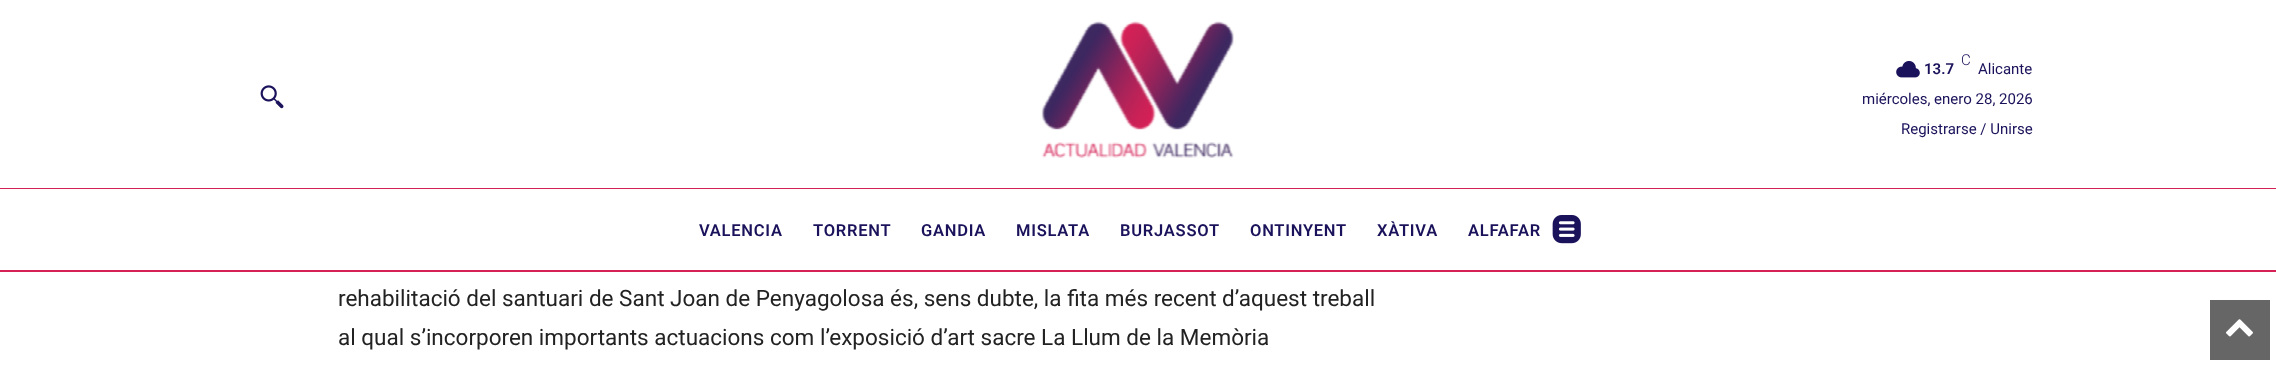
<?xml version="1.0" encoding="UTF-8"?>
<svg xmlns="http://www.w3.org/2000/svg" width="2276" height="366">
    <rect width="100%" height="100%" fill="#FFFFFF"/>
    <image x="260" y="85" width="24" height="24" href="img_01.png"/>
    <image x="1041" y="21" width="193" height="137" href="img_02.png"/>
    <image x="1896" y="61" width="24" height="17" href="img_03.png"/>
    <text x="1961" y="65" font-family="Roboto" font-size="15" font-weight="300" fill="#1A125B">C</text>
    <text x="1924" y="74" font-family="Roboto" font-size="15" font-weight="600" fill="#1A125B">13.7</text>
    <text x="1978" y="74" font-family="Roboto" font-size="15" fill="#1A125B">Alicante</text>
    <text x="1862" y="104" font-family="Roboto" font-size="15" fill="#1A125B">miércoles, enero 28, 2026</text>
    <text x="1901" y="134" font-family="Roboto" font-size="15" fill="#1A125B">Registrarse / Unirse</text>
    <rect x="0" y="188" width="2276" height="1" fill="#D52156"/>
    <text x="699" y="236" font-family="Roboto" font-size="16.5" font-weight="600" letter-spacing="0.75" fill="#1A125B">VALENCIA</text>
    <text x="813" y="236" font-family="Roboto" font-size="16.5" font-weight="600" letter-spacing="0.75" fill="#1A125B">TORRENT</text>
    <text x="921" y="236" font-family="Roboto" font-size="16.5" font-weight="600" letter-spacing="0.75" fill="#1A125B">GANDIA</text>
    <text x="1016" y="236" font-family="Roboto" font-size="16.5" font-weight="600" letter-spacing="0.75" fill="#1A125B">MISLATA</text>
    <text x="1120" y="236" font-family="Roboto" font-size="16.5" font-weight="600" letter-spacing="0.75" fill="#1A125B">BURJASSOT</text>
    <text x="1250" y="236" font-family="Roboto" font-size="16.5" font-weight="600" letter-spacing="0.75" fill="#1A125B">ONTINYENT</text>
    <text x="1377" y="236" font-family="Roboto" font-size="16.5" font-weight="600" letter-spacing="0.75" fill="#1A125B">XÀTIVA</text>
    <text x="1468" y="236" font-family="Roboto" font-size="16.5" font-weight="600" letter-spacing="0.75" fill="#1A125B">ALFAFAR</text>
    <image x="1552" y="215" width="29" height="29" href="img_04.png"/>
    <rect x="0" y="270" width="2276" height="2" fill="#D52156"/>
    <text font-family="Roboto" font-size="22.5" fill="#222222">
        <tspan x="338" y="306">rehabilitació del santuari de Sant Joan de Penyagolosa és, sens dubte, la fita més recent d’aquest treball</tspan>
        <tspan x="338" y="345">al qual s’incorporen importants actuacions com l’exposició d’art sacre La Llum de la Memòria</tspan>
    </text>
    <rect x="2210" y="300" width="60" height="60" fill="#666666"/>
    <image x="2226" y="319" width="27" height="18" href="img_05.png"/>
</svg>
